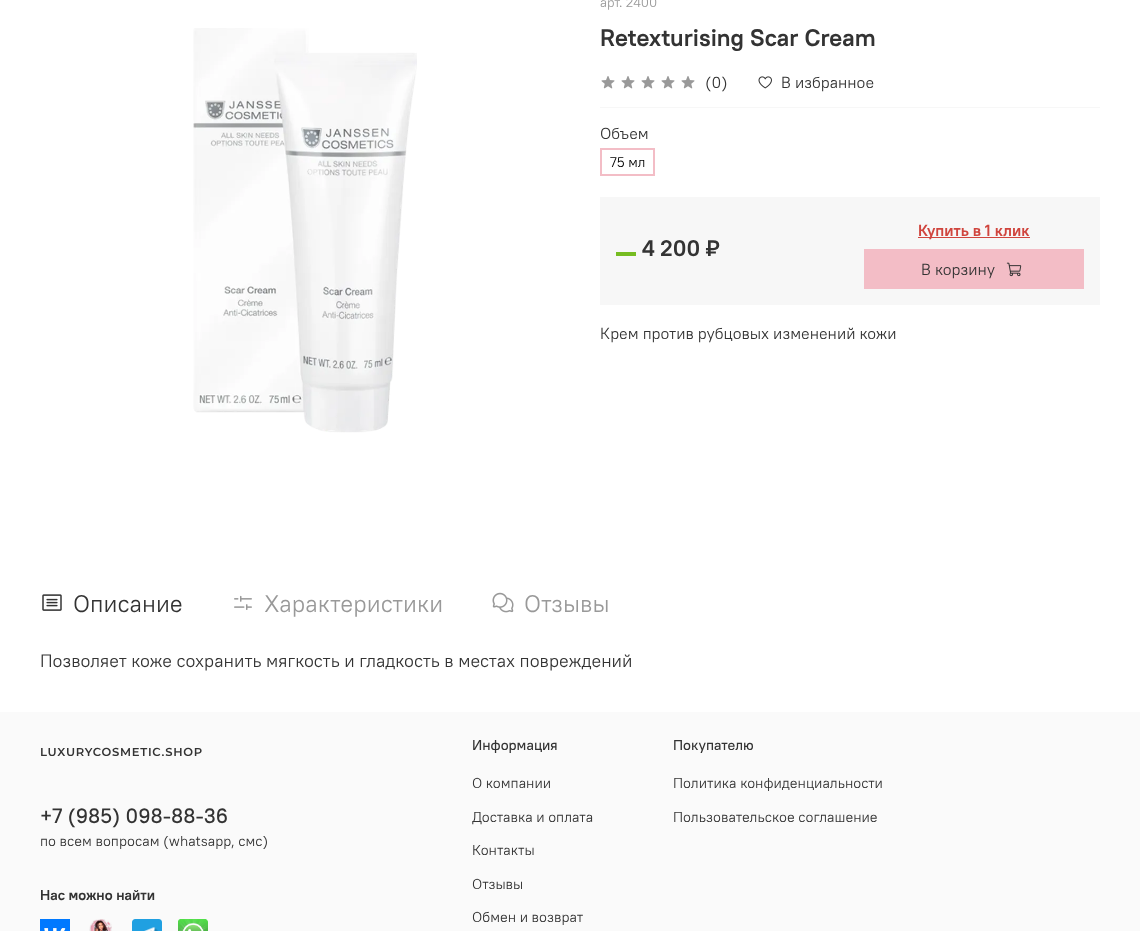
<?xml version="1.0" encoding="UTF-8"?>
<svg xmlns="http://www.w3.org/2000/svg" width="1140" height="931">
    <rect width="100%" height="100%" fill="#FFFFFF"/>
    <text x="600" y="7" font-family="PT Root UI" font-size="13.5" fill="#999999">арт. 2400</text>
    <image x="193" y="28" width="224" height="405" href="img_01.png"/>
    <text x="600" y="46" font-family="PT Root UI" font-size="24" font-weight="700" fill="#333333">Retexturising Scar Cream</text>
    <rect x="600" y="107" width="500" height="1" fill="#F7F7F7"/>
    <image x="601" y="76" width="14" height="13" href="img_02.png"/>
    <image x="621" y="76" width="14" height="13" href="img_02.png"/>
    <image x="641" y="76" width="14" height="13" href="img_02.png"/>
    <image x="661" y="76" width="14" height="13" href="img_02.png"/>
    <image x="681" y="76" width="14" height="13" href="img_02.png"/>
    <text x="705" y="88" font-family="PT Root UI" font-size="16" fill="#333333">(0)</text>
    <image x="758" y="76" width="14" height="13" href="img_03.png"/>
    <text x="781" y="88" font-family="PT Root UI" font-size="16" fill="#333333">В избранное</text>
    <text x="600" y="139" font-family="PT Root UI" font-size="16" fill="#333333">Объем</text>
    <rect x="601" y="149" width="53" height="26" fill="none" stroke="#F3BDC6" stroke-width="2"/>
    <text x="610" y="167" font-family="PT Root UI" font-size="14" fill="#000000">75 мл</text>
    <rect x="600" y="197" width="500" height="108" fill="#F7F7F7"/>
    <rect x="616" y="252" width="20" height="4" fill="#76BC21"/>
    <text x="642" y="256" font-family="PT Root UI" font-size="22.5" font-weight="700" fill="#333333">4 200 ₽</text>
    <rect x="918" y="237" width="112" height="1" fill="#D0453E"/>
    <text x="918" y="236" font-family="PT Root UI" font-size="16" font-weight="700" fill="#D0453E">Купить в 1 клик</text>
    <rect x="864" y="249" width="220" height="40" fill="#F3BDC6"/>
    <text x="921" y="275" font-family="PT Root UI" font-size="16" fill="#333333">В корзину</text>
    <image x="1006" y="262" width="16" height="15" href="img_04.png"/>
    <text x="600" y="339" font-family="PT Root UI" font-size="16" fill="#333333">Крем против рубцовых изменений кожи</text>
    <image x="42" y="594" width="20" height="17" href="img_05.png"/>
    <text x="73" y="612" font-family="PT Root UI" font-size="24" fill="#333333">Описание</text>
    <image x="234" y="595" width="18" height="15" href="img_06.png"/>
    <text x="264" y="612" font-family="PT Root UI" font-size="24" fill="#999999">Характеристики</text>
    <image x="492" y="592" width="22" height="21" href="img_07.png"/>
    <text x="524" y="612" font-family="PT Root UI" font-size="24" fill="#999999">Отзывы</text>
    <text x="40" y="667" font-family="PT Root UI" font-size="18" fill="#333333">Позволяет коже сохранить мягкость и гладкость в местах повреждений</text>
    <rect x="0" y="712" width="1140" height="219" fill="#FAFAFA"/>
    <image x="41" y="747" width="161" height="9" href="img_08.png"/>
    <text x="40" y="823" font-family="PT Root UI" font-size="20.75" font-weight="500" fill="#333333">+7 (985) 098-88-36</text>
    <text x="40" y="846" font-family="PT Root UI" font-size="14.4" fill="#333333">по всем вопросам (whatsapp, смс)</text>
    <text x="40" y="900" font-family="PT Root UI" font-size="14.4" font-weight="700" fill="#333333">Нас можно найти</text>
    <image x="40" y="919" width="30" height="12" href="img_09.png"/>
    <image x="89" y="919" width="23" height="12" href="img_10.png"/>
    <image x="132" y="919" width="30" height="12" href="img_11.png"/>
    <image x="178" y="919" width="30" height="12" href="img_12.png"/>
    <text x="472" y="750" font-family="PT Root UI" font-size="14.4" font-weight="500" fill="#333333">Информация</text>
    <text x="472" y="788" font-family="PT Root UI" font-size="14.4" fill="#333333">О компании</text>
    <text x="472" y="822" font-family="PT Root UI" font-size="14.4" fill="#333333">Доставка и оплата</text>
    <text x="472" y="855" font-family="PT Root UI" font-size="14.4" fill="#333333">Контакты</text>
    <text x="472" y="889" font-family="PT Root UI" font-size="14.4" fill="#333333">Отзывы</text>
    <text x="472" y="922" font-family="PT Root UI" font-size="14.4" fill="#333333">Обмен и возврат</text>
    <text x="673" y="750" font-family="PT Root UI" font-size="14.4" font-weight="500" fill="#333333">Покупателю</text>
    <text x="673" y="788" font-family="PT Root UI" font-size="14.4" fill="#333333">Политика конфиденциальности</text>
    <text x="673" y="822" font-family="PT Root UI" font-size="14.4" fill="#333333">Пользовательское соглашение</text>
</svg>
